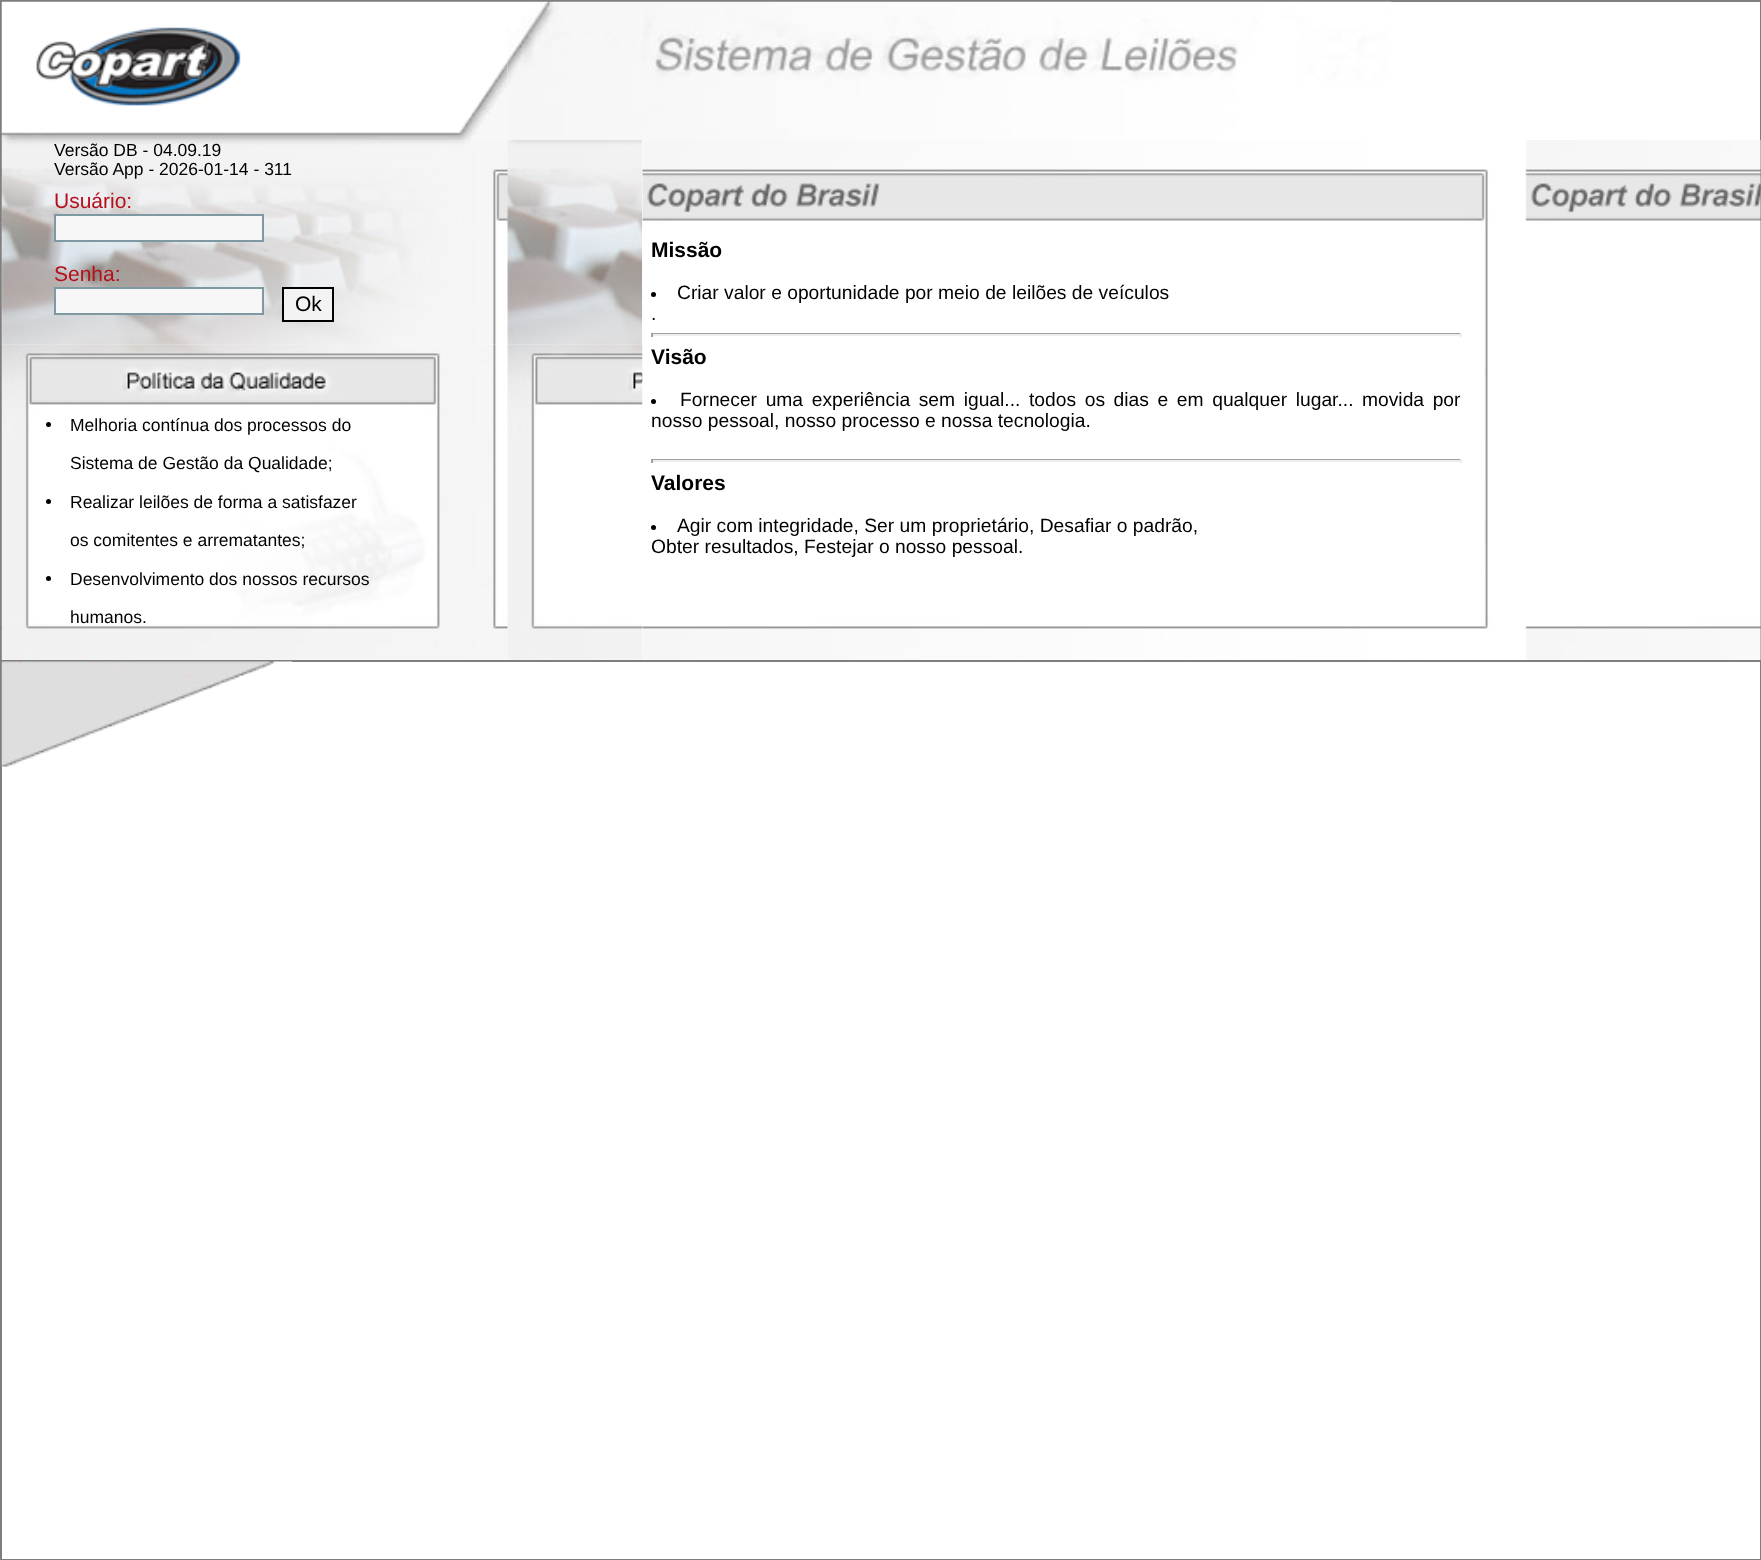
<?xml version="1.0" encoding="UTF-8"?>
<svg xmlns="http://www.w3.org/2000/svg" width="1761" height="1560">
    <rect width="100%" height="100%" fill="#FFFFFF"/>
    <rect x="1" y="1" width="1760" height="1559" fill="none" stroke="#7F7D7E" stroke-width="2"/>
    <image x="1" y="1" width="507" height="139" href="img_01.png"/>
    <image x="507" y="1" width="885" height="139" href="img_02.png"/>
    <image x="1" y="140" width="642" height="205" href="img_03.png"/>
    <text font-family="Liberation Sans" font-size="17.5" fill="#000000">
        <tspan x="54" y="156">Versão DB - 04.09.19</tspan>
        <tspan x="54" y="175">Versão App - 2026-01-14 - 311</tspan>
    </text>
    <text x="54" y="208" font-family="Liberation Sans" font-size="21" fill="#B50F1B">Usuário:</text>
    <rect x="55" y="215" width="208" height="26" fill="#F7F7F7" stroke="#7E99A1" stroke-width="2"/>
    <text x="54" y="281" font-family="Liberation Sans" font-size="21" fill="#B50F1B">Senha:</text>
    <rect x="55" y="288" width="208" height="26" fill="#F7F7F7" stroke="#7E99A1" stroke-width="2"/>
    <rect x="283" y="288" width="50" height="33" fill="#F3F3F3" stroke="#000000" stroke-width="2"/>
    <text x="295" y="311" font-family="Liberation Sans" font-size="21" fill="#000000">Ok</text>
    <image x="642" y="140" width="1119" height="520" href="img_04.png"/>
    <text x="651" y="257" font-family="Liberation Sans" font-size="21" font-weight="700" fill="#000000">Missão</text>
    <circle cx="653.5" cy="294.5" r="2.5" fill="#000000"/>
    <text x="677" y="299" font-family="Liberation Sans" font-size="19.25" fill="#000000">Criar valor e oportunidade por meio de leilões de veículos</text>
    <text x="651" y="320" font-family="Liberation Sans" font-size="19.25" fill="#000000">.</text>
    <rect x="651" y="333" width="810" height="1" fill="#9F9F9F"/>
    <rect x="1460" y="333" width="2" height="4" fill="#EEEEEE"/>
    <rect x="651" y="334" width="810" height="2" fill="#EEEEEE"/>
    <rect x="651" y="333" width="2" height="4" fill="#9F9F9F"/>
    <text x="651" y="364" font-family="Liberation Sans" font-size="21" font-weight="700" fill="#000000">Visão</text>
    <circle cx="653.5" cy="401.5" r="2.5" fill="#000000"/>
    <text x="680" y="406" word-spacing="3.25" font-family="Liberation Sans" font-size="19.25" fill="#000000">Fornecer uma experiência sem igual... todos os dias e em qualquer lugar...</text>
    <text x="1362" y="406" word-spacing="3.25" font-family="Liberation Sans" font-size="19.25" fill="#000000">movida por</text>
    <text x="651" y="427" font-family="Liberation Sans" font-size="19.25" fill="#000000">nosso pessoal, nosso processo e nossa tecnologia.</text>
    <rect x="651" y="459" width="810" height="1" fill="#9F9F9F"/>
    <rect x="1460" y="459" width="2" height="4" fill="#EEEEEE"/>
    <rect x="651" y="460" width="810" height="2" fill="#EEEEEE"/>
    <rect x="651" y="459" width="2" height="4" fill="#9F9F9F"/>
    <text x="651" y="490" font-family="Liberation Sans" font-size="21" font-weight="700" fill="#000000">Valores</text>
    <circle cx="653.5" cy="527.5" r="2.5" fill="#000000"/>
    <text x="677" y="532" font-family="Liberation Sans" font-size="19.25" fill="#000000">Agir com integridade, Ser um proprietário, Desafiar o padrão,</text>
    <text x="651" y="553" font-family="Liberation Sans" font-size="19.25" fill="#000000">Obter resultados, Festejar o nosso pessoal.</text>
    <image x="1" y="344" width="642" height="316" href="img_05.png"/>
    <circle cx="48.5" cy="424.5" r="2.5" fill="#000000"/>
    <text x="70" y="431" font-family="Liberation Sans" font-size="17.5" fill="#000000">Melhoria contínua dos processos do</text>
    <text x="70" y="469" font-family="Liberation Sans" font-size="17.5" fill="#000000">Sistema de Gestão da Qualidade;</text>
    <circle cx="48.5" cy="501.5" r="2.5" fill="#000000"/>
    <text x="70" y="508" font-family="Liberation Sans" font-size="17.5" fill="#000000">Realizar leilões de forma a satisfazer</text>
    <text x="70" y="546" font-family="Liberation Sans" font-size="17.5" fill="#000000">os comitentes e arrematantes;</text>
    <circle cx="48.5" cy="578.5" r="2.5" fill="#000000"/>
    <text x="70" y="585" font-family="Liberation Sans" font-size="17.5" fill="#000000">Desenvolvimento dos nossos recursos</text>
    <text x="70" y="623" font-family="Liberation Sans" font-size="17.5" fill="#000000">humanos.</text>
    <rect x="2" y="660" width="1759" height="2" fill="#7F7D7E"/>
    <image x="1" y="661" width="292" height="106" href="img_06.png"/>
</svg>
